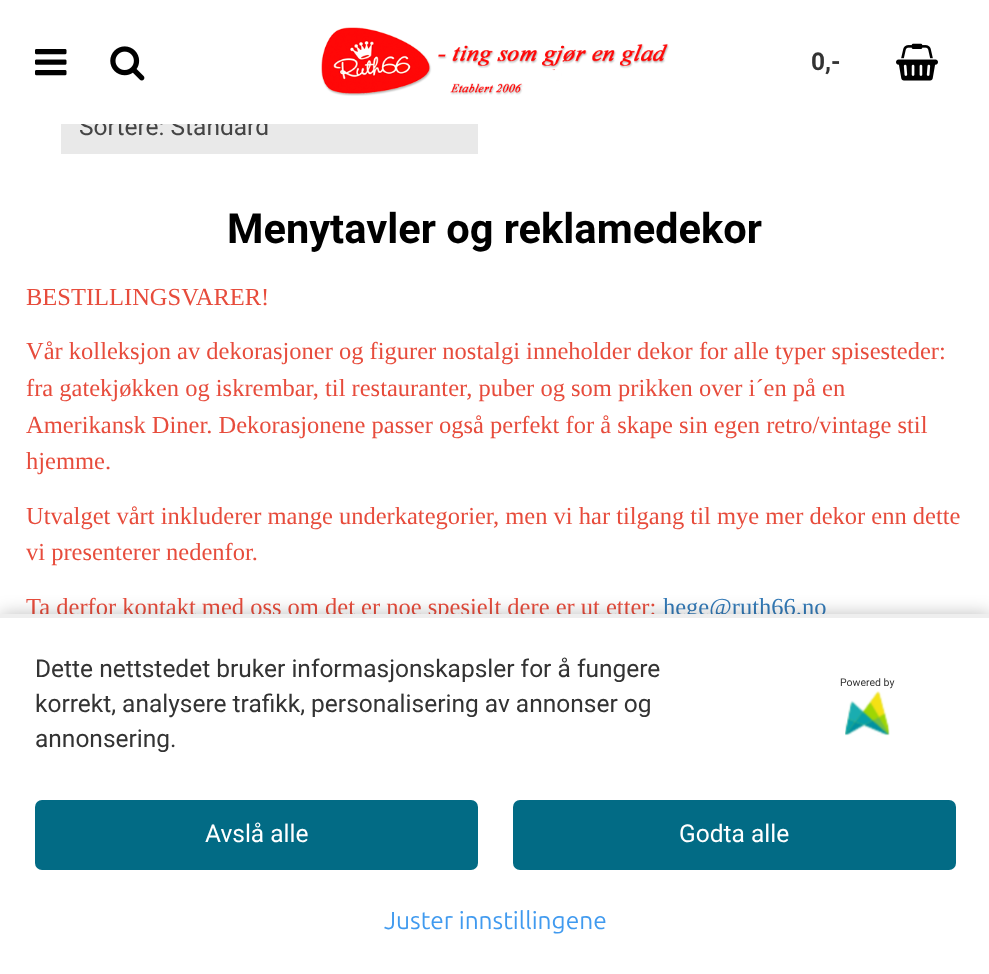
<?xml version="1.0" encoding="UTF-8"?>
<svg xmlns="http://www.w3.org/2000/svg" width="989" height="974">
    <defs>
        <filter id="blur1" x="-50%" y="-200%" width="200%" height="500%"><feGaussianBlur stdDeviation="9"/></filter>
    </defs>
    <rect width="100%" height="100%" fill="#FFFFFF"/>
    <rect x="61" y="124" width="417" height="30" fill="#E9E9E9"/>
    <text x="79" y="135" font-family="Roboto" font-size="24.5" fill="#444444">Sortere: Standard</text>
    <path d="M 5 0 H 986 C 989 0 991 2 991 5 V 124 H 0 V 5 C 0 2 2 0 5 0 Z" fill="#FFFFFF"/>
    <image x="35" y="49" width="32" height="27" href="img_01.png"/>
    <image x="110" y="46" width="35" height="35" href="img_02.png"/>
    <image x="321" y="27" width="348" height="69" href="img_03.png"/>
    <text x="811" y="70" font-family="Roboto" font-size="24.5" font-weight="700" fill="#333333">0,-</text>
    <image x="896" y="43" width="42" height="38" href="img_04.png"/>
    <text x="227" y="243" font-family="Roboto" font-size="41.6" font-weight="700" fill="#000000">Menytavler og reklamedekor</text>
    <text x="26" y="305" font-family="Liberation Serif" font-size="24.5" fill="#E74C3C">BESTILLINGSVARER!</text>
    <text font-family="Liberation Serif" font-size="24.5" fill="#E74C3C">
        <tspan x="26" y="359">Vår kolleksjon av dekorasjoner og figurer nostalgi inneholder dekor for alle typer spisesteder:</tspan>
        <tspan x="26" y="396">fra gatekjøkken og iskrembar, til restauranter, puber og som prikken over i´en på en</tspan>
        <tspan x="26" y="433">Amerikansk Diner. Dekorasjonene passer også perfekt for å skape sin egen retro/vintage stil</tspan>
        <tspan x="26" y="469">hjemme.</tspan>
    </text>
    <text font-family="Liberation Serif" font-size="24.5" fill="#E74C3C">
        <tspan x="26" y="524">Utvalget vårt inkluderer mange underkategorier, men vi har tilgang til mye mer dekor enn dette</tspan>
        <tspan x="26" y="560">vi presenterer nedenfor.</tspan>
    </text>
    <text x="26" y="615" font-family="Liberation Serif" font-size="24.5" fill="#E74C3C">Ta derfor kontakt med oss om det er noe spesielt dere er ut etter:</text>
    <text x="663" y="615" font-family="Liberation Serif" font-size="24.5" fill="#337AB7">hege@ruth66.no</text>
    <rect x="0" y="614" width="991" height="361" fill="#000000" fill-opacity="0.25" filter="url(#blur1)"/>
    <rect x="0" y="618" width="989" height="356" fill="#FFFFFF"/>
    <rect x="0" y="614" width="989" height="4" fill="#EEEEEE"/>
    <text font-family="Roboto" font-size="24.5" fill="#333333">
        <tspan x="35" y="677">Dette nettstedet bruker informasjonskapsler for å fungere</tspan>
        <tspan x="35" y="712">korrekt, analysere trafikk, personalisering av annonser og</tspan>
        <tspan x="35" y="747">annonsering.</tspan>
    </text>
    <text x="840" y="686" font-family="Roboto" font-size="10.5" fill="#333333">Powered by</text>
    <image x="845" y="691" width="45" height="45" href="img_05.png"/>
    <rect x="35" y="800" width="443" height="70" rx="7" fill="#026B85"/>
    <text x="205" y="842" font-family="Roboto" font-size="24.5" fill="#FFFFFF">Avslå alle</text>
    <rect x="513" y="800" width="443" height="70" rx="7" fill="#026B85"/>
    <text x="679" y="842" font-family="Roboto" font-size="24.5" fill="#FFFFFF">Godta alle</text>
    <text x="384" y="929" font-family="Ubuntu" font-size="24.5" fill="#409AEF">Juster innstillingene</text>
</svg>
